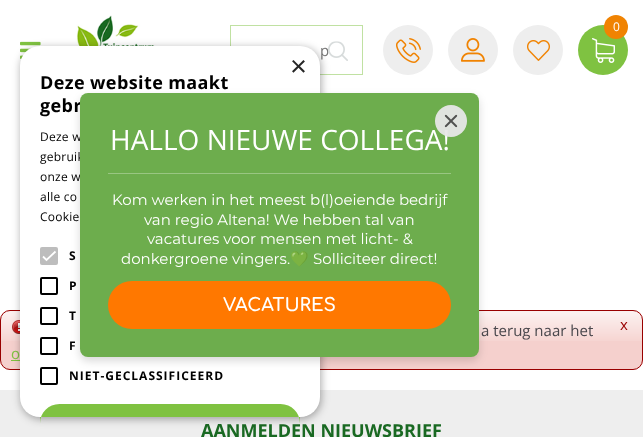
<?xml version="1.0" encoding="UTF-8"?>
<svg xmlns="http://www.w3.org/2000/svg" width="643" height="437">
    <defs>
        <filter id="blur1" x="-50%" y="-200%" width="200%" height="500%"><feGaussianBlur stdDeviation="4"/></filter>
    </defs>
    <rect width="100%" height="100%" fill="#FFFFFF"/>
    <image x="20" y="41" width="21" height="18" href="img_01.png"/>
    <image x="60" y="15" width="153" height="31" href="img_02.png"/>
    <rect x="230.5" y="25.5" width="132" height="49" fill="none" stroke="#C0E1A2"/>
    <text x="320" y="56" font-family="Open Sans" font-size="15" fill="#757575">p</text>
    <image x="328" y="41" width="20" height="20" href="img_03.png"/>
    <rect x="328" y="41" width="20" height="1" fill="#FFFFFF" fill-opacity="0.4"/>
    <circle cx="408" cy="50" r="25" fill="#EEEEEE"/>
    <image x="396" y="38" width="25" height="25" href="img_04.png"/>
    <circle cx="473" cy="50" r="25" fill="#EEEEEE"/>
    <image x="461" y="38" width="24" height="24" href="img_05.png"/>
    <circle cx="538" cy="50" r="25" fill="#EEEEEE"/>
    <image x="527" y="40" width="23" height="21" href="img_06.png"/>
    <circle cx="603" cy="50" r="25" fill="#7FC241"/>
    <image x="592" y="38" width="23" height="25" href="img_07.png"/>
    <circle cx="616" cy="27" r="12" fill="#F08302"/>
    <text x="613" y="31" font-family="Open Sans" font-size="12" fill="#FFFFFF">0</text>
    <rect x="0" y="310" width="643" height="60" rx="10" fill="#F5D0CD"/>
    <image x="0" y="311" width="643" height="30" href="img_08.png"/>
    <rect x="0.5" y="310.5" width="642" height="59" rx="9.5" fill="none" stroke="#990000"/>
    <image x="12" y="320" width="8" height="14" href="img_09.png"/>
    <text x="481" y="336" font-family="Open Sans" font-size="15" fill="#49474C">a terug naar het</text>
    <text x="11" y="359" font-family="Open Sans" font-size="15" fill="#7FC241">o</text>
    <rect x="11" y="360" width="9" height="1" fill="#7FC241"/>
    <text x="620" y="330" font-family="Open Sans" font-size="15" fill="#990000">x</text>
    <rect x="0" y="390" width="643" height="47" fill="#EEEEEE"/>
    <text x="201" y="437" font-family="Open Sans" font-size="18" font-weight="700" fill="#196922">AANMELDEN NIEUWSBRIEF</text>
    <rect x="21" y="48" width="300" height="371" rx="20" fill="#000000" fill-opacity="0.35" filter="url(#blur1)"/>
    <rect x="20" y="46" width="300" height="371" rx="20" fill="#FFFFFF"/>
    <text x="290" y="76" font-family="Liberation Sans" font-size="29" fill="#262626">×</text>
    <text font-family="Open Sans" font-size="18" font-weight="700" letter-spacing="0.4" fill="#000000">
        <tspan x="40" y="89">Deze website maakt</tspan>
        <tspan x="40" y="112">gebr</tspan>
    </text>
    <text font-family="Open Sans" font-size="12" letter-spacing="0.25" fill="#000000">
        <tspan x="40" y="141">Deze w</tspan>
        <tspan x="40" y="161">gebruik</tspan>
        <tspan x="40" y="181">onze w</tspan>
        <tspan x="40" y="201">alle co</tspan>
        <tspan x="40" y="221">Cookie</tspan>
    </text>
    <rect x="40" y="247" width="18" height="18" rx="2" fill="#BDBDBD"/>
    <path d="M 43 256.5 L 46.5 260 L 55.5 251.5" fill="none" stroke="#FFFFFF" stroke-width="1.8"/>
    <text x="69" y="260" font-family="Open Sans" font-size="12" font-weight="700" letter-spacing="1" fill="#000000">S</text>
    <rect x="41" y="278" width="16" height="16" rx="1" fill="none" stroke="#000000" stroke-width="2"/>
    <text x="69" y="290" font-family="Open Sans" font-size="12" font-weight="700" letter-spacing="1" fill="#000000">P</text>
    <rect x="41" y="308" width="16" height="16" rx="1" fill="none" stroke="#000000" stroke-width="2"/>
    <text x="69" y="320" font-family="Open Sans" font-size="12" font-weight="700" letter-spacing="1" fill="#000000">T</text>
    <rect x="41" y="338" width="16" height="16" rx="1" fill="none" stroke="#000000" stroke-width="2"/>
    <text x="69" y="350" font-family="Open Sans" font-size="12" font-weight="700" letter-spacing="1" fill="#000000">F</text>
    <rect x="41" y="368" width="16" height="16" rx="1" fill="none" stroke="#000000" stroke-width="2"/>
    <text x="69" y="380" font-family="Open Sans" font-size="12" font-weight="700" letter-spacing="1" fill="#000000">NIET-GECLASSIFICEERD</text>
    <path d="M 59.5 404 H 280.5 C 291.5 404 300 412.5 300 423.5 V 417 H 40 V 423.5 C 40 412.5 48.5 404 59.5 404 Z" fill="#7FC241"/>
    <rect x="80" y="97" width="399" height="264" rx="8" fill="#000000" fill-opacity="0.15" filter="url(#blur1)"/>
    <rect x="80" y="93" width="399" height="264" rx="8" fill="#6DAD4D"/>
    <text x="110" y="150" font-family="Open Sans" font-size="28" fill="#FFFFFF">HALLO NIEUWE COLLEGA!</text>
    <circle cx="451" cy="121" r="16" fill="#E7E7E7" fill-opacity="0.95"/>
    <image x="444" y="114" width="14" height="14" href="img_10.png"/>
    <rect x="108" y="173" width="343" height="1" fill="#99C682"/>
    <text x="112" y="205" font-family="Montserrat" font-size="15" fill="#FFFFFF">Kom werken in het meest b(l)oeiende bedrijf</text>
    <text x="144" y="225" font-family="Montserrat" font-size="15" fill="#FFFFFF">van regio Altena! We hebben tal van</text>
    <text x="147" y="244" font-family="Montserrat" font-size="15" fill="#FFFFFF">vacatures voor mensen met licht- &amp;</text>
    <text x="121" y="264" font-family="Montserrat" font-size="15" fill="#FFFFFF">donkergroene vingers.</text>
    <text x="290" y="264" font-family="Noto Color Emoji" font-size="15" fill="#FFFFFF">💚</text>
    <text x="313" y="264" font-family="Montserrat" font-size="15" fill="#FFFFFF">Solliciteer direct!</text>
    <rect x="108" y="281" width="343" height="48" rx="24" fill="#FF7800"/>
    <text x="223" y="311" font-family="Comfortaa" font-size="18" font-weight="700" fill="#FFFFFF">VACATURES</text>
</svg>
